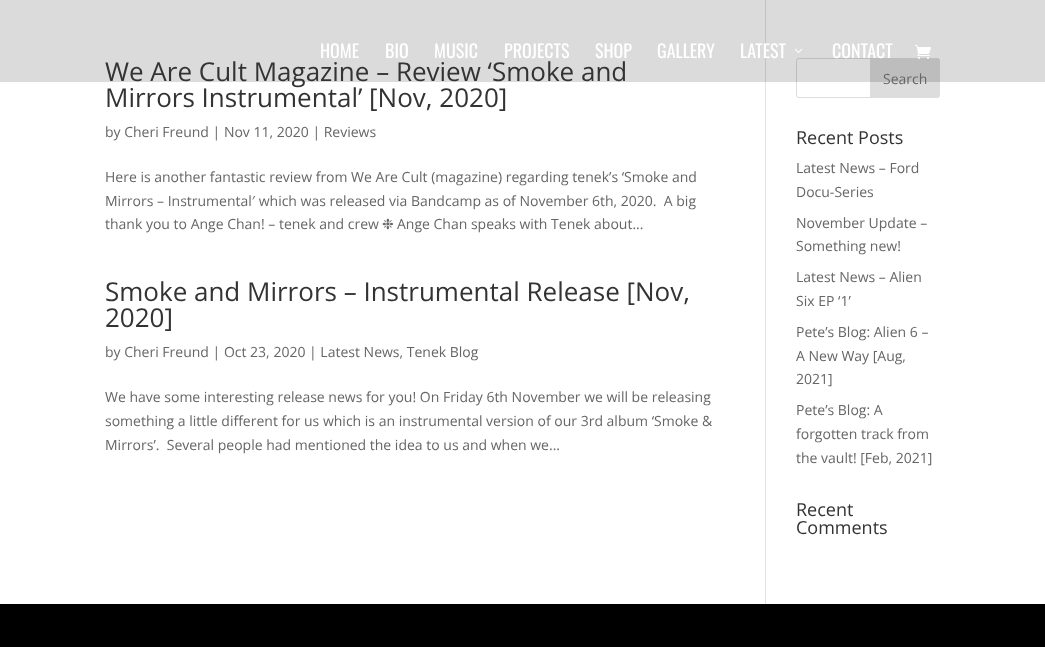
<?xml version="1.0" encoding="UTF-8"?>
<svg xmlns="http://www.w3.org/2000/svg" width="1045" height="647">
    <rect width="100%" height="100%" fill="#FFFFFF"/>
    <rect x="765" y="0" width="1" height="604" fill="#E2E2E2"/>
    <rect x="796.5" y="58.5" width="143" height="39" rx="2.5" fill="none" stroke="#DDDDDD"/>
    <path d="M 870.5 58.5 H 937 C 938.5 58.5 939.5 59.5 939.5 61 V 95 C 939.5 96.5 938.5 97.5 937 97.5 H 870.5 Z" fill="#DDDDDD" stroke="#DDDDDD"/>
    <rect x="0" y="0" width="1045" height="82" fill="#000000" fill-opacity="0.14"/>
    <text x="320" y="58" font-family="Oswald" font-size="18" fill="#FFFFFF">HOME</text>
    <text x="385" y="58" font-family="Oswald" font-size="18" fill="#FFFFFF">BIO</text>
    <text x="434" y="58" font-family="Oswald" font-size="18" fill="#FFFFFF">MUSIC</text>
    <text x="504" y="58" font-family="Oswald" font-size="18" fill="#FFFFFF">PROJECTS</text>
    <text x="595" y="58" font-family="Oswald" font-size="18" fill="#FFFFFF">SHOP</text>
    <text x="657" y="58" font-family="Oswald" font-size="18" fill="#FFFFFF">GALLERY</text>
    <text x="740" y="58" font-family="Oswald" font-size="18" fill="#FFFFFF">LATEST</text>
    <image x="794" y="48" width="9" height="5" href="img_01.png"/>
    <text x="832" y="58" font-family="Oswald" font-size="18" fill="#FFFFFF">CONTACT</text>
    <image x="915" y="45" width="16" height="14" href="img_02.png"/>
    <text font-family="Open Sans" font-size="26" fill="#333333">
        <tspan x="105" y="81">We Are Cult Magazine – Review ‘Smoke and</tspan>
        <tspan x="105" y="107">Mirrors Instrumental’ [Nov, 2020]</tspan>
    </text>
    <text x="105" y="137" font-family="Open Sans" font-size="14" fill="#666666">by Cheri Freund | Nov 11, 2020 | Reviews</text>
    <text font-family="Open Sans" font-size="14" fill="#666666" xml:space="preserve"><tspan x="105" y="182">Here is another fantastic review from We Are Cult (magazine) regarding tenek’s ‘Smoke and</tspan><tspan x="105" y="206">Mirrors – Instrumental′ which was released via Bandcamp as of November 6th, 2020.  A big</tspan><tspan x="105" y="229">thank you to Ange Chan! – tenek and crew</tspan></text>
    <text x="382" y="229" font-family="DejaVu Sans" font-size="14" fill="#666666">❉</text>
    <text x="397" y="229" font-family="Open Sans" font-size="14" fill="#666666">Ange Chan speaks with Tenek about...</text>
    <text font-family="Open Sans" font-size="26" fill="#333333">
        <tspan x="105" y="301">Smoke and Mirrors – Instrumental Release [Nov,</tspan>
        <tspan x="105" y="327">2020]</tspan>
    </text>
    <text x="105" y="357" font-family="Open Sans" font-size="14" fill="#666666">by Cheri Freund | Oct 23, 2020 | Latest News, Tenek Blog</text>
    <text font-family="Open Sans" font-size="14" fill="#666666" xml:space="preserve"><tspan x="105" y="402">We have some interesting release news for you! On Friday 6th November we will be releasing</tspan><tspan x="105" y="426">something a little different for us which is an instrumental version of our 3rd album ‘Smoke &amp;</tspan><tspan x="105" y="450">Mirrors’.  Several people had mentioned the idea to us and when we...</tspan></text>
    <text x="883" y="84" font-family="Open Sans" font-size="14" fill="#666666">Search</text>
    <text x="796" y="144" font-family="Open Sans" font-size="18" fill="#333333">Recent Posts</text>
    <text font-family="Open Sans" font-size="14" fill="#666666">
        <tspan x="796" y="173">Latest News – Ford</tspan>
        <tspan x="796" y="197">Docu-Series</tspan>
    </text>
    <text font-family="Open Sans" font-size="14" fill="#666666">
        <tspan x="796" y="228">November Update –</tspan>
        <tspan x="796" y="251">Something new!</tspan>
    </text>
    <text font-family="Open Sans" font-size="14" fill="#666666">
        <tspan x="796" y="282">Latest News – Alien</tspan>
        <tspan x="796" y="306">Six EP ‘1’</tspan>
    </text>
    <text font-family="Open Sans" font-size="14" fill="#666666">
        <tspan x="796" y="337">Pete’s Blog: Alien 6 –</tspan>
        <tspan x="796" y="361">A New Way [Aug,</tspan>
        <tspan x="796" y="384">2021]</tspan>
    </text>
    <text font-family="Open Sans" font-size="14" fill="#666666">
        <tspan x="796" y="415">Pete’s Blog: A</tspan>
        <tspan x="796" y="439">forgotten track from</tspan>
        <tspan x="796" y="463">the vault! [Feb, 2021]</tspan>
    </text>
    <text font-family="Open Sans" font-size="18" fill="#333333">
        <tspan x="796" y="516">Recent</tspan>
        <tspan x="796" y="534">Comments</tspan>
    </text>
    <rect x="0" y="604" width="1045" height="43" fill="#000000"/>
</svg>
